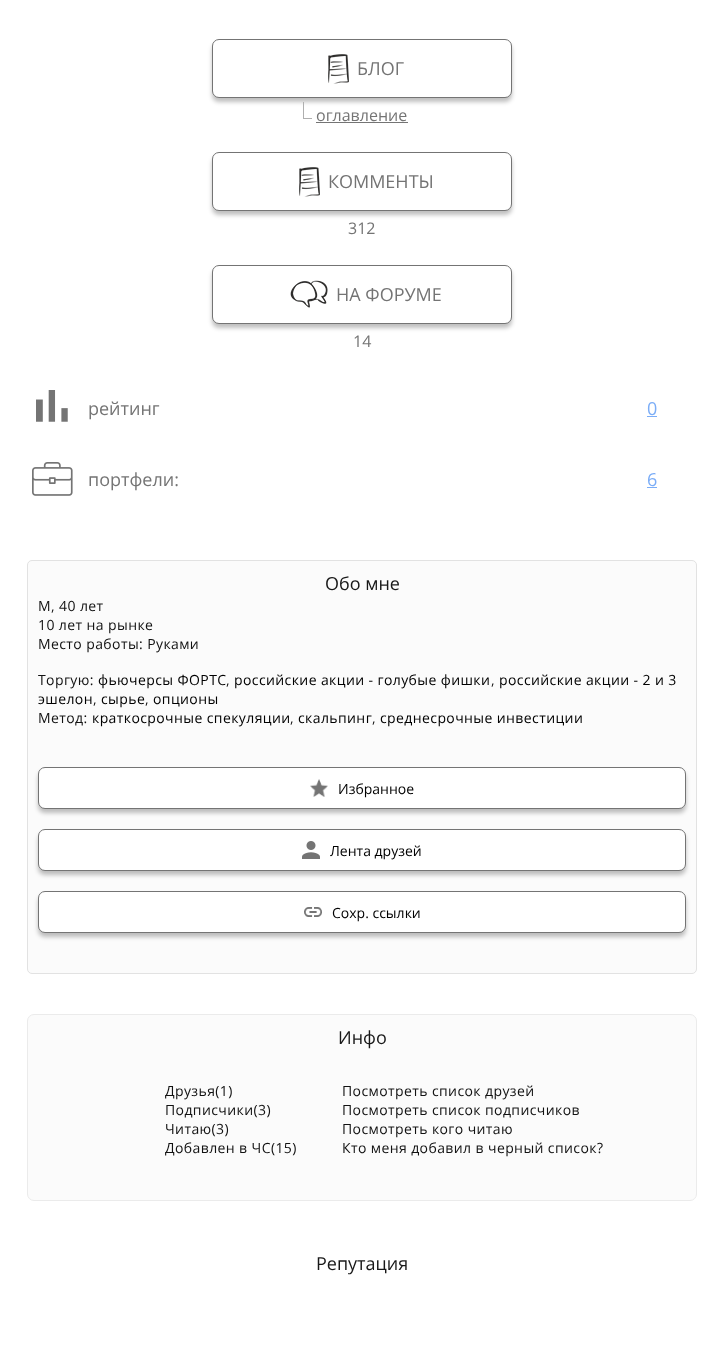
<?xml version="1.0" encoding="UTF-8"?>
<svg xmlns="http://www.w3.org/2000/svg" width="724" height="1357">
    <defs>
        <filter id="blur1" x="-50%" y="-200%" width="200%" height="500%"><feGaussianBlur stdDeviation="2"/></filter>
    </defs>
    <rect width="100%" height="100%" fill="#FFFFFF"/>
    <rect x="212" y="43" width="300" height="59" rx="7" fill="#000000" fill-opacity="0.25" filter="url(#blur1)"/>
    <rect x="212.5" y="39.5" width="299" height="58" rx="6.5" fill="#FFFFFF" stroke="#747474"/>
    <image x="328" y="54" width="21" height="30" href="img_01.png"/>
    <text x="357" y="75" font-family="Open Sans" font-size="18" fill="#747474">БЛОГ</text>
    <rect x="303" y="118" width="9" height="1" fill="#AFAFAF"/>
    <rect x="303" y="102" width="1" height="17" fill="#AFAFAF"/>
    <text x="316" y="121" font-family="Open Sans" font-size="16" fill="#747474">оглавление</text>
    <rect x="316" y="122" width="92" height="1" fill="#747474"/>
    <rect x="212" y="156" width="300" height="59" rx="7" fill="#000000" fill-opacity="0.25" filter="url(#blur1)"/>
    <rect x="212.5" y="152.5" width="299" height="58" rx="6.5" fill="#FFFFFF" stroke="#747474"/>
    <image x="299" y="167" width="21" height="30" href="img_01.png"/>
    <text x="328" y="188" font-family="Open Sans" font-size="18" fill="#747474">КОММЕНТЫ</text>
    <text x="348" y="234" font-family="Open Sans" font-size="16" fill="#747474">312</text>
    <rect x="212" y="269" width="300" height="59" rx="7" fill="#000000" fill-opacity="0.25" filter="url(#blur1)"/>
    <rect x="212.5" y="265.5" width="299" height="58" rx="6.5" fill="#FFFFFF" stroke="#747474"/>
    <image x="290" y="280" width="38" height="28" href="img_02.png"/>
    <text x="336" y="301" font-family="Open Sans" font-size="18" fill="#747474">НА ФОРУМЕ</text>
    <text x="353" y="347" font-family="Open Sans" font-size="16" fill="#747474">14</text>
    <image x="36" y="390" width="32" height="32" href="img_03.png"/>
    <text x="88" y="415" font-family="Open Sans" font-size="18" fill="#747474">рейтинг</text>
    <text x="647" y="415" font-family="Open Sans" font-size="18" fill="#7BADF7">0</text>
    <rect x="647" y="416" width="10" height="1" fill="#7BADF7"/>
    <image x="32" y="462" width="41" height="34" href="img_04.png"/>
    <text x="88" y="486" font-family="Open Sans" font-size="18" fill="#747474">портфели:</text>
    <text x="647" y="486" font-family="Open Sans" font-size="18" fill="#7BADF7">6</text>
    <rect x="647" y="487" width="10" height="1" fill="#7BADF7"/>
    <rect x="27.5" y="560.5" width="669" height="413" rx="4.5" fill="#FBFBFB" stroke="#E2E2E2"/>
    <text x="325" y="590" font-family="Open Sans" font-size="18" fill="#181818">Обо мне</text>
    <text font-family="Open Sans" font-size="14" letter-spacing="0.4" fill="#121212">
        <tspan x="38" y="611">М, 40 лет</tspan>
        <tspan x="38" y="630">10 лет на рынке</tspan>
        <tspan x="38" y="649">Место работы: Руками</tspan>
    </text>
    <text x="38" y="685" font-family="Open Sans" font-size="14" letter-spacing="0.4" fill="#121212">Торгую:</text>
    <text x="98" y="685" font-family="Open Sans" font-size="14" letter-spacing="0.4" fill="#000000">фьючерсы ФОРТС</text>
    <text x="226" y="685" font-family="Open Sans" font-size="14" letter-spacing="0.4" fill="#121212">,</text>
    <text x="234" y="685" font-family="Open Sans" font-size="14" letter-spacing="0.4" fill="#000000">российские акции - голубые фишки</text>
    <text x="491" y="685" font-family="Open Sans" font-size="14" letter-spacing="0.4" fill="#121212">,</text>
    <text x="499" y="685" font-family="Open Sans" font-size="14" letter-spacing="0.4" fill="#000000">российские акции - 2 и 3</text>
    <text x="38" y="704" font-family="Open Sans" font-size="14" letter-spacing="0.4" fill="#000000">эшелон</text>
    <text x="93" y="704" font-family="Open Sans" font-size="14" letter-spacing="0.4" fill="#121212">,</text>
    <text x="101" y="704" font-family="Open Sans" font-size="14" letter-spacing="0.4" fill="#000000">сырье</text>
    <text x="145" y="704" font-family="Open Sans" font-size="14" letter-spacing="0.4" fill="#121212">,</text>
    <text x="153" y="704" font-family="Open Sans" font-size="14" letter-spacing="0.4" fill="#000000">опционы</text>
    <text x="38" y="723" font-family="Open Sans" font-size="14" letter-spacing="0.4" fill="#121212">Метод:</text>
    <text x="92" y="723" font-family="Open Sans" font-size="14" letter-spacing="0.4" fill="#000000">краткосрочные спекуляции</text>
    <text x="290" y="723" font-family="Open Sans" font-size="14" letter-spacing="0.4" fill="#121212">,</text>
    <text x="298" y="723" font-family="Open Sans" font-size="14" letter-spacing="0.4" fill="#000000">скальпинг</text>
    <text x="372" y="723" font-family="Open Sans" font-size="14" letter-spacing="0.4" fill="#121212">,</text>
    <text x="380" y="723" font-family="Open Sans" font-size="14" letter-spacing="0.4" fill="#000000">среднесрочные инвестиции</text>
    <rect x="38" y="771" width="648" height="42" rx="7" fill="#000000" fill-opacity="0.25" filter="url(#blur1)"/>
    <rect x="38.5" y="767.5" width="647" height="41" rx="6.5" fill="#FFFFFF" stroke="#747474"/>
    <image x="310" y="779" width="18" height="18" href="img_05.png"/>
    <text x="338" y="794" font-family="Open Sans" font-size="14" fill="#000000">Избранное</text>
    <rect x="38" y="833" width="648" height="42" rx="7" fill="#000000" fill-opacity="0.25" filter="url(#blur1)"/>
    <rect x="38.5" y="829.5" width="647" height="41" rx="6.5" fill="#FFFFFF" stroke="#747474"/>
    <image x="302" y="841" width="18" height="18" href="img_06.png"/>
    <text x="330" y="856" font-family="Open Sans" font-size="14" fill="#000000">Лента друзей</text>
    <rect x="38" y="895" width="648" height="42" rx="7" fill="#000000" fill-opacity="0.25" filter="url(#blur1)"/>
    <rect x="38.5" y="891.5" width="647" height="41" rx="6.5" fill="#FFFFFF" stroke="#747474"/>
    <image x="304" y="907" width="18" height="10" href="img_07.png"/>
    <text x="332" y="918" font-family="Open Sans" font-size="14" fill="#000000">Сохр. ссылки</text>
    <rect x="27.5" y="1014.5" width="669" height="186" rx="6.5" fill="#FBFBFB" stroke="#EBEBEB"/>
    <text x="338" y="1044" font-family="Open Sans" font-size="18" fill="#181818">Инфо</text>
    <text font-family="Open Sans" font-size="14" letter-spacing="0.4" fill="#121212">
        <tspan x="165" y="1096">Друзья(1)</tspan>
        <tspan x="165" y="1115">Подписчики(3)</tspan>
        <tspan x="165" y="1134">Читаю(3)</tspan>
        <tspan x="165" y="1153">Добавлен в ЧС(15)</tspan>
    </text>
    <text font-family="Open Sans" font-size="14" letter-spacing="0.4" fill="#121212">
        <tspan x="342" y="1096">Посмотреть список друзей</tspan>
        <tspan x="342" y="1115">Посмотреть список подписчиков</tspan>
        <tspan x="342" y="1134">Посмотреть кого читаю</tspan>
        <tspan x="342" y="1153">Кто меня добавил в черный список?</tspan>
    </text>
    <text x="316" y="1270" font-family="Open Sans" font-size="18" fill="#181818">Репутация</text>
</svg>
